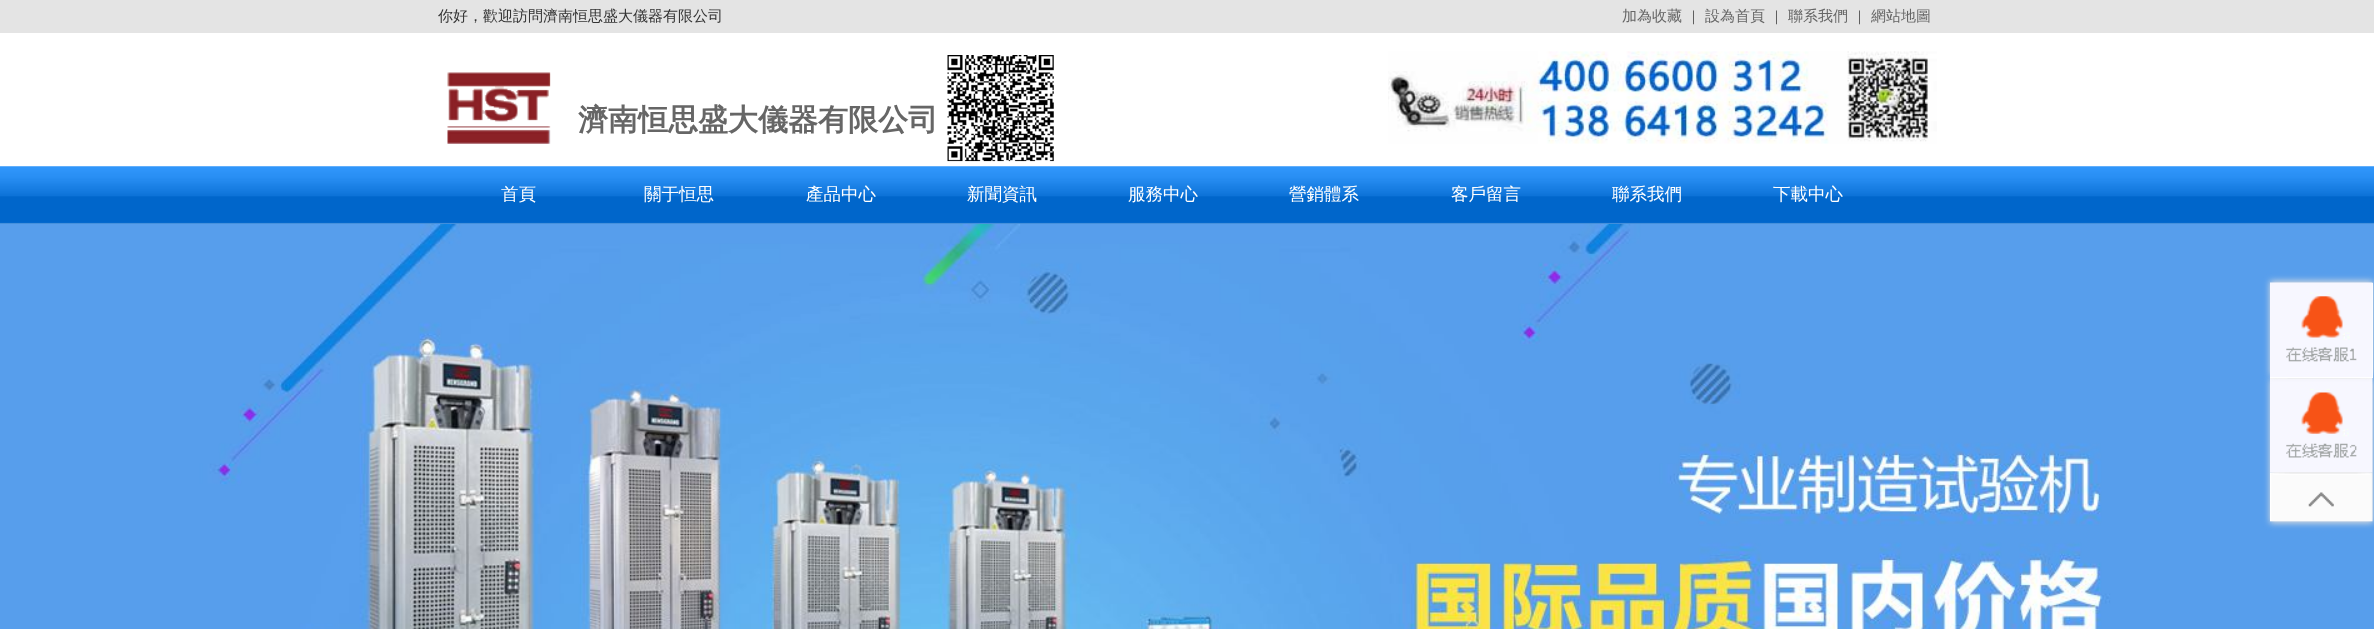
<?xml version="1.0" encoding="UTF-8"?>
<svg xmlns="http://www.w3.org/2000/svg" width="2374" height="629">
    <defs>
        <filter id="blur1" x="-50%" y="-200%" width="200%" height="500%"><feGaussianBlur stdDeviation="3"/></filter>
    </defs>
    <rect width="100%" height="100%" fill="#FFFFFF"/>
    <rect x="0" y="0" width="2374" height="33" fill="#E4E4E4"/>
    <text x="438" y="21" font-family="WenQuanYi Zen Hei" font-size="15" font-weight="500" fill="#333333">你好，歡迎訪問濟南恒思盛大儀器有限公司</text>
    <text x="1622" y="21" font-family="WenQuanYi Zen Hei" font-size="15" font-weight="500" fill="#666666">加為收藏</text>
    <text x="1692" y="21" font-family="Liberation Serif" font-size="15" fill="#333333">|</text>
    <text x="1705" y="21" font-family="WenQuanYi Zen Hei" font-size="15" font-weight="500" fill="#666666">設為首頁</text>
    <text x="1775" y="21" font-family="Liberation Serif" font-size="15" fill="#333333">|</text>
    <text x="1788" y="21" font-family="WenQuanYi Zen Hei" font-size="15" font-weight="500" fill="#666666">聯系我們</text>
    <text x="1858" y="21" font-family="Liberation Serif" font-size="15" fill="#333333">|</text>
    <text x="1871" y="21" font-family="WenQuanYi Zen Hei" font-size="15" font-weight="500" fill="#666666">網站地圖</text>
    <image x="447" y="55" width="607" height="107" href="img_01.png"/>
    <text x="578" y="130" font-family="WenQuanYi Zen Hei" font-size="30" font-weight="700" fill="#666666">濟南恒思盛大儀器有限公司</text>
    <image x="1388" y="51" width="549" height="93" href="img_02.png"/>
    <image x="0" y="166" width="2374" height="58" href="img_03.png"/>
    <text x="501" y="200" font-family="WenQuanYi Zen Hei" font-size="17.5" font-weight="500" fill="#FFFFFF">首頁</text>
    <text x="644" y="200" font-family="WenQuanYi Zen Hei" font-size="17.5" font-weight="500" fill="#FFFFFF">關于恒思</text>
    <text x="806" y="200" font-family="WenQuanYi Zen Hei" font-size="17.5" font-weight="500" fill="#FFFFFF">產品中心</text>
    <text x="967" y="200" font-family="WenQuanYi Zen Hei" font-size="17.5" font-weight="500" fill="#FFFFFF">新聞資訊</text>
    <text x="1128" y="200" font-family="WenQuanYi Zen Hei" font-size="17.5" font-weight="500" fill="#FFFFFF">服務中心</text>
    <text x="1289" y="200" font-family="WenQuanYi Zen Hei" font-size="17.5" font-weight="500" fill="#FFFFFF">營銷體系</text>
    <text x="1451" y="200" font-family="WenQuanYi Zen Hei" font-size="17.5" font-weight="500" fill="#FFFFFF">客戶留言</text>
    <text x="1612" y="200" font-family="WenQuanYi Zen Hei" font-size="17.5" font-weight="500" fill="#FFFFFF">聯系我們</text>
    <text x="1773" y="200" font-family="WenQuanYi Zen Hei" font-size="17.5" font-weight="500" fill="#FFFFFF">下載中心</text>
    <image x="0" y="223" width="2374" height="406" href="img_04.png"/>
    <rect x="2270" y="379" width="103" height="144" fill="#DDDDDD" filter="url(#blur1)"/>
    <image x="2270" y="378" width="103" height="95" href="img_06.png"/>
    <rect x="2270" y="281" width="103" height="95" fill="#DDDDDD" filter="url(#blur1)"/>
    <rect x="2270" y="283" width="103" height="95" fill="#FFFFFF"/>
    <image x="2270" y="282" width="103" height="95" href="img_05.png"/>
    <image x="2270" y="472" width="103" height="50" href="img_07.png"/>
</svg>
